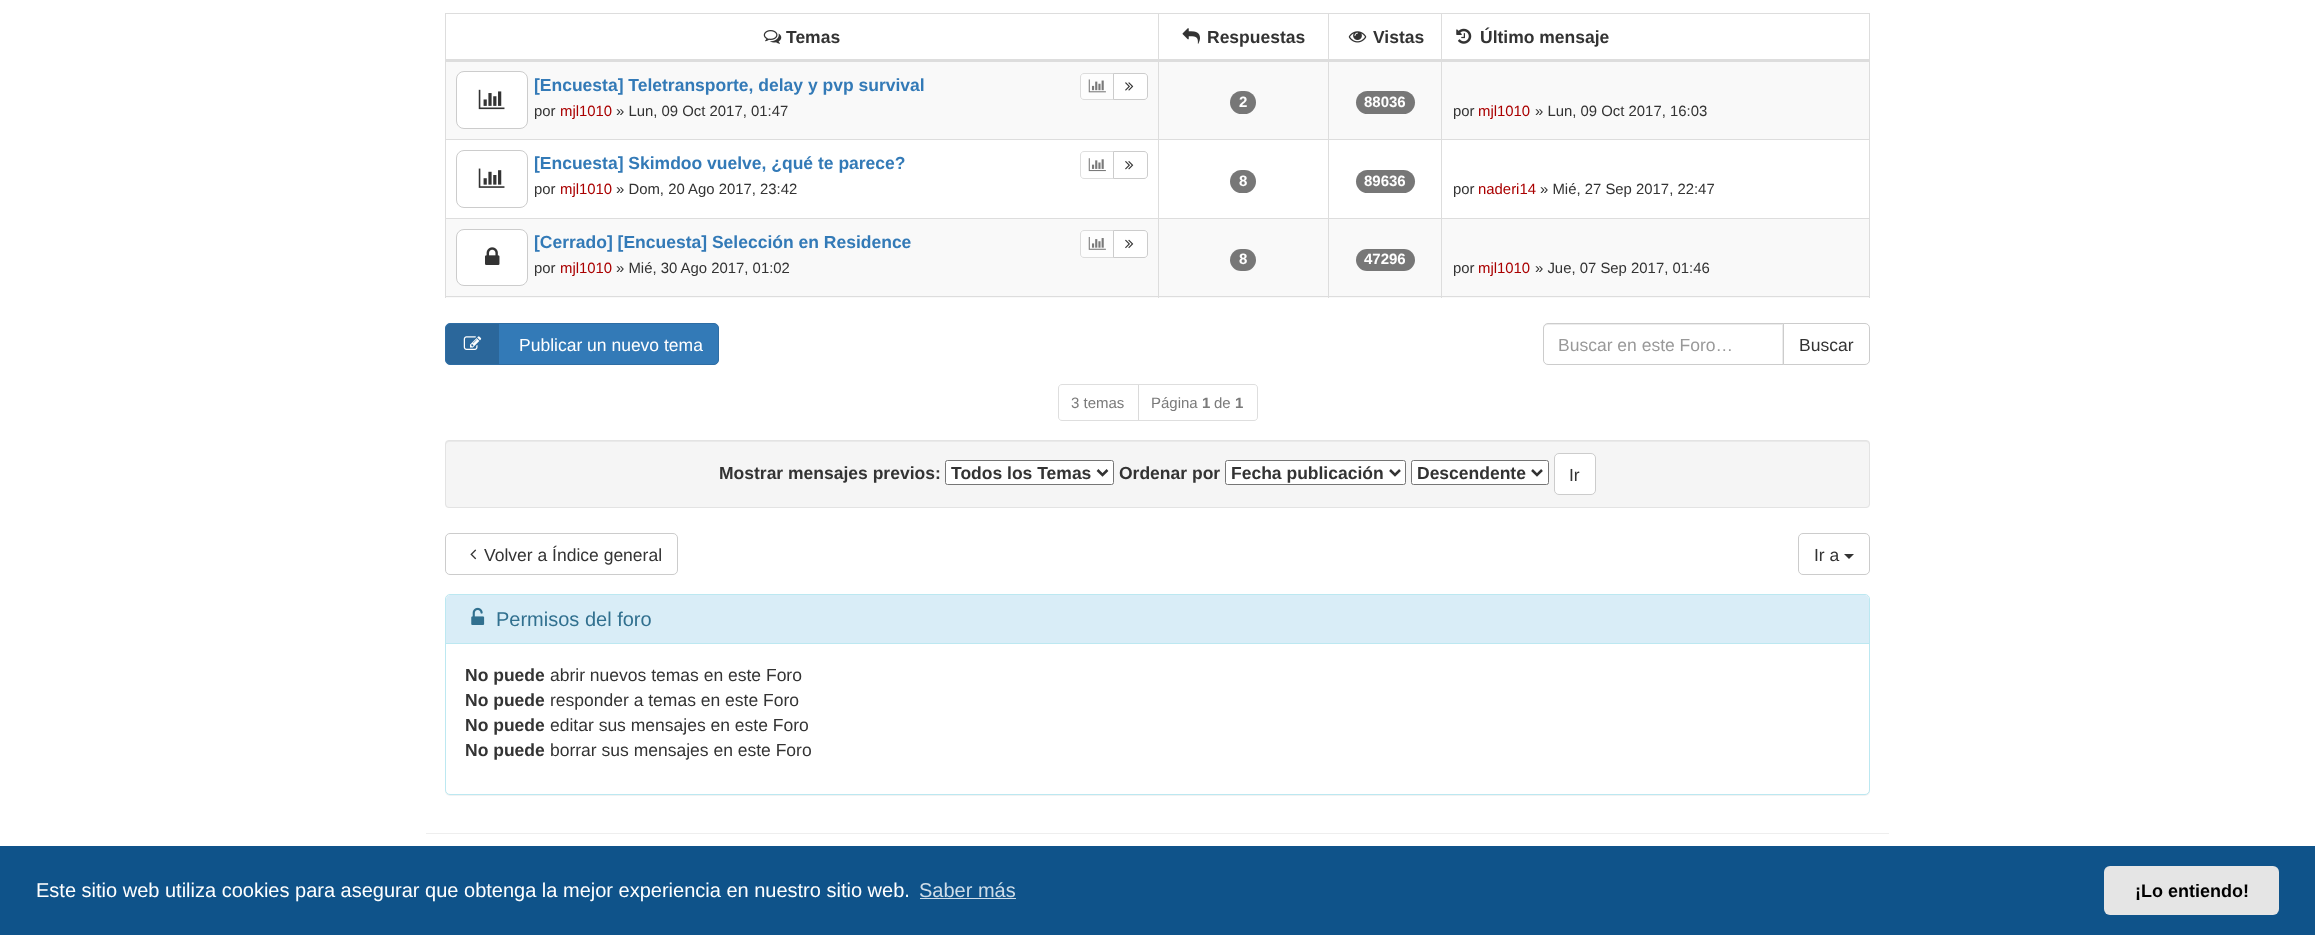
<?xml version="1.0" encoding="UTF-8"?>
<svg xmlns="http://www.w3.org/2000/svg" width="2315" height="935">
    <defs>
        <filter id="blur1" x="-50%" y="-200%" width="200%" height="500%"><feGaussianBlur stdDeviation="0.5"/></filter>
    </defs>
    <rect width="100%" height="100%" fill="#FFFFFF"/>
    <rect x="445" y="13" width="1425" height="1" fill="#DDDDDD"/>
    <rect x="1869" y="13" width="1" height="285" fill="#DDDDDD"/>
    <rect x="446" y="219" width="1423" height="79" fill="#F9F9F9"/>
    <rect x="445" y="296" width="1425" height="1" fill="#DDDDDD"/>
    <rect x="445" y="13" width="1" height="285" fill="#DDDDDD"/>
    <image x="763" y="30" width="19" height="14" href="img_01.png"/>
    <text x="786" y="43" font-family="Liberation Sans" font-size="17.5" font-weight="700" fill="#333333">Temas</text>
    <image x="1182" y="28" width="18" height="16" href="img_02.png"/>
    <text x="1207" y="43" font-family="Liberation Sans" font-size="17.5" font-weight="700" fill="#333333">Respuestas</text>
    <image x="1348" y="31" width="19" height="12" href="img_03.png"/>
    <text x="1373" y="43" font-family="Liberation Sans" font-size="17.5" font-weight="700" fill="#333333">Vistas</text>
    <rect x="446" y="62" width="1423" height="77" fill="#F9F9F9"/>
    <rect x="1441" y="139" width="429" height="1" fill="#DDDDDD"/>
    <rect x="1441" y="218" width="429" height="1" fill="#DDDDDD"/>
    <rect x="1441" y="218" width="1" height="80" fill="#DDDDDD"/>
    <rect x="1328" y="218" width="115" height="1" fill="#DDDDDD"/>
    <rect x="1441" y="139" width="1" height="80" fill="#DDDDDD"/>
    <rect x="1328" y="139" width="115" height="1" fill="#DDDDDD"/>
    <rect x="1328" y="218" width="1" height="80" fill="#DDDDDD"/>
    <rect x="1158" y="218" width="171" height="1" fill="#DDDDDD"/>
    <rect x="1328" y="139" width="1" height="80" fill="#DDDDDD"/>
    <rect x="1158" y="139" width="171" height="1" fill="#DDDDDD"/>
    <rect x="1158" y="218" width="1" height="80" fill="#DDDDDD"/>
    <rect x="445" y="218" width="714" height="1" fill="#DDDDDD"/>
    <rect x="1158" y="139" width="1" height="80" fill="#DDDDDD"/>
    <rect x="445" y="139" width="714" height="1" fill="#DDDDDD"/>
    <rect x="1158" y="13" width="1" height="127" fill="#DDDDDD"/>
    <rect x="1328" y="13" width="1" height="127" fill="#DDDDDD"/>
    <rect x="1441" y="13" width="1" height="127" fill="#DDDDDD"/>
    <rect x="445" y="59" width="1425" height="3" fill="#DDDDDD"/>
    <image x="1456" y="28" width="16" height="16" href="img_04.png"/>
    <text x="1480" y="43" font-family="Liberation Sans" font-size="17.5" font-weight="700" fill="#333333">Último mensaje</text>
    <rect x="456.5" y="71.5" width="71" height="57" rx="7.5" fill="#FFFFFF" stroke="#CCCCCC"/>
    <image x="478" y="89" width="27" height="21" href="img_05.png"/>
    <text x="534" y="91" font-family="Liberation Sans" font-size="17.5" font-weight="700" fill="#337AB7">[Encuesta] Teletransporte, delay y pvp survival</text>
    <path d="M 1084 73.5 H 1113.5 V 99.5 H 1084 C 1082 99.5 1080.5 98 1080.5 96 V 77 C 1080.5 75 1082 73.5 1084 73.5 Z" fill="#FDFDFD" stroke="#DCDCDC"/>
    <image x="1088" y="79" width="18" height="14" href="img_06.png"/>
    <path d="M 1113.5 73.5 H 1144 C 1146 73.5 1147.5 75 1147.5 77 V 96 C 1147.5 98 1146 99.5 1144 99.5 H 1113.5 Z" fill="#FFFFFF" stroke="#CCCCCC"/>
    <image x="1125" y="82" width="9" height="9" href="img_07.png"/>
    <text x="534" y="116" font-family="Liberation Sans" font-size="14.9" fill="#333333">por</text>
    <text x="560" y="116" font-family="Liberation Sans" font-size="14.9" fill="#AA0000">mjl1010</text>
    <text x="616" y="116" font-family="Liberation Sans" font-size="14.9" fill="#333333">» Lun, 09 Oct 2017, 01:47</text>
    <rect x="1230" y="91" width="26" height="23" rx="11.5" fill="#777777"/>
    <text x="1239" y="107" font-family="Liberation Sans" font-size="15" font-weight="700" fill="#FFFFFF">2</text>
    <rect x="1356" y="91" width="59" height="23" rx="11.5" fill="#777777"/>
    <text x="1364" y="107" font-family="Liberation Sans" font-size="15" font-weight="700" fill="#FFFFFF">88036</text>
    <text x="1453" y="116" font-family="Liberation Sans" font-size="14.9" fill="#333333">por</text>
    <text x="1478" y="116" font-family="Liberation Sans" font-size="14.9" fill="#AA0000">mjl1010</text>
    <text x="1535" y="116" font-family="Liberation Sans" font-size="14.9" fill="#333333">» Lun, 09 Oct 2017, 16:03</text>
    <rect x="456.5" y="150.5" width="71" height="57" rx="7.5" fill="none" stroke="#CCCCCC"/>
    <image x="478" y="168" width="27" height="20" href="img_08.png"/>
    <text x="534" y="169" font-family="Liberation Sans" font-size="17.5" font-weight="700" fill="#337AB7">[Encuesta] Skimdoo vuelve, ¿qué te parece?</text>
    <path d="M 1084 151.5 H 1113.5 V 178.5 H 1084 C 1082 178.5 1080.5 177 1080.5 175 V 155 C 1080.5 153 1082 151.5 1084 151.5 Z" fill="none" stroke="#DEDEDE"/>
    <image x="1088" y="158" width="18" height="14" href="img_09.png"/>
    <path d="M 1113.5 151.5 H 1144 C 1146 151.5 1147.5 153 1147.5 155 V 175 C 1147.5 177 1146 178.5 1144 178.5 H 1113.5 Z" fill="#FFFFFF" stroke="#CCCCCC"/>
    <image x="1125" y="161" width="9" height="9" href="img_10.png"/>
    <text x="534" y="194" font-family="Liberation Sans" font-size="14.9" fill="#333333">por</text>
    <text x="560" y="194" font-family="Liberation Sans" font-size="14.9" fill="#AA0000">mjl1010</text>
    <text x="616" y="194" font-family="Liberation Sans" font-size="14.9" fill="#333333">» Dom, 20 Ago 2017, 23:42</text>
    <rect x="1230" y="170" width="26" height="23" rx="11.5" fill="#777777"/>
    <text x="1239" y="186" font-family="Liberation Sans" font-size="15" font-weight="700" fill="#FFFFFF">8</text>
    <rect x="1356" y="170" width="59" height="23" rx="11.5" fill="#777777"/>
    <text x="1364" y="186" font-family="Liberation Sans" font-size="15" font-weight="700" fill="#FFFFFF">89636</text>
    <text x="1453" y="194" font-family="Liberation Sans" font-size="14.9" fill="#333333">por</text>
    <text x="1478" y="194" font-family="Liberation Sans" font-size="14.9" fill="#AA0000">naderi14</text>
    <text x="1540" y="194" font-family="Liberation Sans" font-size="14.9" fill="#333333">» Mié, 27 Sep 2017, 22:47</text>
    <rect x="456.5" y="229.5" width="71" height="56" rx="7.5" fill="#FFFFFF" stroke="#CCCCCC"/>
    <image x="485" y="247" width="15" height="18" href="img_11.png"/>
    <text x="534" y="248" font-family="Liberation Sans" font-size="17.5" font-weight="700" fill="#337AB7">[Cerrado] [Encuesta] Selección en Residence</text>
    <path d="M 1084 230.5 H 1113.5 V 257.5 H 1084 C 1082 257.5 1080.5 256 1080.5 254 V 234 C 1080.5 232 1082 230.5 1084 230.5 Z" fill="#FDFDFD" stroke="#DCDCDC"/>
    <image x="1088" y="237" width="18" height="13" href="img_12.png"/>
    <path d="M 1113.5 230.5 H 1144 C 1146 230.5 1147.5 232 1147.5 234 V 254 C 1147.5 256 1146 257.5 1144 257.5 H 1113.5 Z" fill="#FFFFFF" stroke="#CCCCCC"/>
    <image x="1125" y="239" width="9" height="10" href="img_13.png"/>
    <text x="534" y="273" font-family="Liberation Sans" font-size="14.9" fill="#333333">por</text>
    <text x="560" y="273" font-family="Liberation Sans" font-size="14.9" fill="#AA0000">mjl1010</text>
    <text x="616" y="273" font-family="Liberation Sans" font-size="14.9" fill="#333333">» Mié, 30 Ago 2017, 01:02</text>
    <rect x="1230" y="249" width="26" height="22" rx="11" fill="#777777"/>
    <text x="1239" y="264" font-family="Liberation Sans" font-size="15" font-weight="700" fill="#FFFFFF">8</text>
    <rect x="1356" y="249" width="59" height="22" rx="11" fill="#777777"/>
    <text x="1364" y="264" font-family="Liberation Sans" font-size="15" font-weight="700" fill="#FFFFFF">47296</text>
    <text x="1453" y="273" font-family="Liberation Sans" font-size="14.9" fill="#333333">por</text>
    <text x="1478" y="273" font-family="Liberation Sans" font-size="14.9" fill="#AA0000">mjl1010</text>
    <text x="1535" y="273" font-family="Liberation Sans" font-size="14.9" fill="#333333">» Jue, 07 Sep 2017, 01:46</text>
    <rect x="445.5" y="323.5" width="273" height="41" rx="4.5" fill="#337AB7" stroke="#2E6DA4"/>
    <path d="M 450 324 H 499 V 364 H 450 C 448 364 446 362 446 360 V 328 C 446 326 448 324 450 324 Z" fill="#000000" fill-opacity="0.15"/>
    <image x="463" y="336" width="19" height="14" href="img_14.png"/>
    <text x="519" y="351" font-family="Liberation Sans" font-size="17.5" fill="#FFFFFF">Publicar un nuevo tema</text>
    <path d="M 1548 325 H 1782 V 364 H 1783 V 324 H 1546 C 1544 325 1544 327 1544 329 C 1544 327 1545 325 1548 325 Z" fill="#ECECEC"/>
    <path d="M 1548 323.5 H 1783.5 V 364.5 H 1548 C 1545.5 364.5 1543.5 362.5 1543.5 360 V 328 C 1543.5 325.5 1545.5 323.5 1548 323.5 Z" fill="none" stroke="#CCCCCC"/>
    <text x="1558" y="351" font-family="Liberation Sans" font-size="17.5" fill="#999999">Buscar en este Foro…</text>
    <path d="M 1783.5 323.5 H 1865 C 1867.5 323.5 1869.5 325.5 1869.5 328 V 360 C 1869.5 362.5 1867.5 364.5 1865 364.5 H 1783.5 Z" fill="#FFFFFF" stroke="#CCCCCC"/>
    <text x="1799" y="351" font-family="Liberation Sans" font-size="17.5" fill="#333333">Buscar</text>
    <path d="M 1062 384.5 H 1138.5 V 420.5 H 1062 C 1060 420.5 1058.5 419 1058.5 417 V 388 C 1058.5 386 1060 384.5 1062 384.5 Z" fill="none" stroke="#DEDEDE"/>
    <text x="1071" y="408" font-family="Liberation Sans" font-size="15" fill="#7A7A7A">3 temas</text>
    <path d="M 1138 384 H 1254 C 1256 384 1258 386 1258 388 V 417 C 1258 419 1256 421 1254 421 H 1138 Z" fill="#FFFFFF" fill-opacity="0.65"/>
    <path d="M 1138.5 384.5 H 1254 C 1256 384.5 1257.5 386 1257.5 388 V 417 C 1257.5 419 1256 420.5 1254 420.5 H 1138.5 Z" fill="none" stroke="#CCCCCC" stroke-opacity="0.65"/>
    <text x="1151" y="408" font-family="Liberation Sans" font-size="15" fill="#7A7A7A">Página</text>
    <text x="1202" y="408" font-family="Liberation Sans" font-size="15" font-weight="700" fill="#7A7A7A">1</text>
    <text x="1214" y="408" font-family="Liberation Sans" font-size="15" fill="#7A7A7A">de</text>
    <text x="1235" y="408" font-family="Liberation Sans" font-size="15" font-weight="700" fill="#7A7A7A">1</text>
    <rect x="445" y="440" width="1425" height="68" rx="4" fill="#F5F5F5"/>
    <path d="M 449 442 H 1866 C 1868 442 1869 444 1869 445 V 444 C 1869 442 1868 441 1866 441 H 448 C 447 441 446 442 446 444 V 445 C 446 444 447 442 449 442 Z" fill="#E9E9E9"/>
    <rect x="445.5" y="440.5" width="1424" height="67" rx="3.5" fill="none" stroke="#E3E3E3"/>
    <text x="719" y="479" font-family="Liberation Sans" font-size="17.5" font-weight="700" fill="#333333">Mostrar mensajes previos:</text>
    <rect x="945.5" y="460.5" width="168" height="24" rx="2" fill="#FFFFFF" stroke="#767676"/>
    <path d="M 1097.5 470 L 1102.5 475 L 1107.5 470" fill="none" stroke="#333333" stroke-width="2.5"/>
    <text x="951" y="479" font-family="Liberation Sans" font-size="17.5" font-weight="700" fill="#333333">Todos los Temas</text>
    <text x="1119" y="479" font-family="Liberation Sans" font-size="17.5" font-weight="700" fill="#333333">Ordenar por</text>
    <rect x="1225.5" y="460.5" width="180" height="24" rx="2" fill="#FFFFFF" stroke="#767676"/>
    <path d="M 1390 470 L 1395 475 L 1400 470" fill="none" stroke="#333333" stroke-width="2.5"/>
    <text x="1231" y="479" font-family="Liberation Sans" font-size="17.5" font-weight="700" fill="#333333">Fecha publicación</text>
    <rect x="1411.5" y="460.5" width="137" height="24" rx="2" fill="#FFFFFF" stroke="#767676"/>
    <path d="M 1532 470 L 1537 475 L 1542 470" fill="none" stroke="#333333" stroke-width="2.5"/>
    <text x="1417" y="479" font-family="Liberation Sans" font-size="17.5" font-weight="700" fill="#333333">Descendente</text>
    <rect x="1554.5" y="453.5" width="41" height="41" rx="4.5" fill="#FFFFFF" stroke="#CCCCCC"/>
    <text x="1569" y="481" font-family="Liberation Sans" font-size="17.5" fill="#333333">Ir</text>
    <rect x="445.5" y="533.5" width="232" height="41" rx="4.5" fill="none" stroke="#CCCCCC"/>
    <image x="470" y="549" width="7" height="11" href="img_15.png"/>
    <text x="484" y="561" font-family="Liberation Sans" font-size="17.5" fill="#333333">Volver a Índice general</text>
    <rect x="1798.5" y="533.5" width="71" height="41" rx="4.5" fill="none" stroke="#CCCCCC"/>
    <text x="1814" y="561" font-family="Liberation Sans" font-size="17.5" fill="#333333">Ir a</text>
    <path d="M 1844 554 H 1854 L 1849 559 Z" fill="#333333"/>
    <rect x="445" y="595" width="1425" height="201" rx="5" fill="#000000" fill-opacity="0.05" filter="url(#blur1)"/>
    <rect x="445.5" y="594.5" width="1424" height="200" rx="4.5" fill="#FFFFFF" stroke="#BCE8F1"/>
    <path d="M 450 595 H 1865 C 1867 595 1869 597 1869 599 V 644 H 446 V 599 C 446 597 448 595 450 595 Z" fill="#D9EDF7"/>
    <rect x="446" y="643" width="1423" height="1" fill="#BCE8F1"/>
    <image x="471" y="607" width="14" height="18" href="img_16.png"/>
    <text x="496" y="626" font-family="Liberation Sans" font-size="20" fill="#31708F">Permisos del foro</text>
    <text x="465" y="681" font-family="Liberation Sans" font-size="17.5" font-weight="700" fill="#333333">No puede</text>
    <text x="550" y="681" font-family="Liberation Sans" font-size="17.5" fill="#333333">abrir nuevos temas en este Foro</text>
    <text x="465" y="706" font-family="Liberation Sans" font-size="17.5" font-weight="700" fill="#333333">No puede</text>
    <text x="550" y="706" font-family="Liberation Sans" font-size="17.5" fill="#333333">responder a temas en este Foro</text>
    <text x="465" y="731" font-family="Liberation Sans" font-size="17.5" font-weight="700" fill="#333333">No puede</text>
    <text x="550" y="731" font-family="Liberation Sans" font-size="17.5" fill="#333333">editar sus mensajes en este Foro</text>
    <text x="465" y="756" font-family="Liberation Sans" font-size="17.5" font-weight="700" fill="#333333">No puede</text>
    <text x="550" y="756" font-family="Liberation Sans" font-size="17.5" fill="#333333">borrar sus mensajes en este Foro</text>
    <rect x="426" y="833" width="1463" height="1" fill="#EEEEEE"/>
    <rect x="0" y="846" width="2315" height="89" fill="#0F538A"/>
    <text x="36" y="897" font-family="Liberation Sans" font-size="20" fill="#FFFFFF">Este sitio web utiliza cookies para asegurar que obtenga la mejor experiencia en nuestro sitio web.</text>
    <text x="919" y="897" font-family="Liberation Sans" font-size="20" fill="#CFDDE8">Saber más</text>
    <rect x="920" y="898" width="96" height="1" fill="#CFDDE8"/>
    <rect x="2104" y="866" width="175" height="49" rx="6" fill="#E5E5E5"/>
    <text x="2135" y="897" font-family="Liberation Sans" font-size="18" font-weight="700" fill="#000000">¡Lo entiendo!</text>
</svg>
